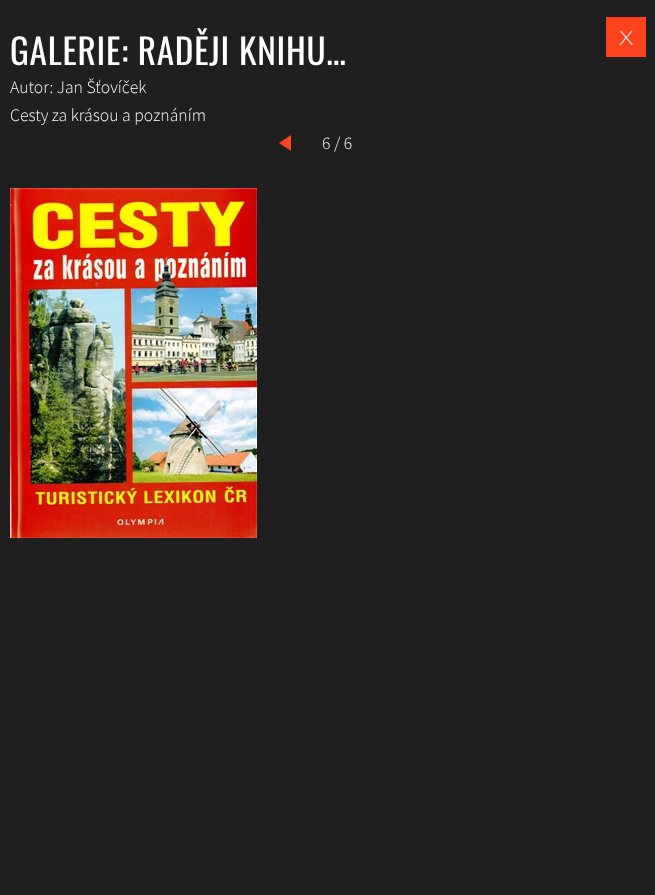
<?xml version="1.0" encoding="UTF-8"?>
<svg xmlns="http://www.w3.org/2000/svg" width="655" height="895">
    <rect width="100%" height="100%" fill="#1F1F1F"/>
    <text x="10" y="65" font-family="Oswald" font-size="35.25" letter-spacing="0.75" fill="#FFFFFF">GALERIE: RADĚJI KNIHU…</text>
    <text font-family="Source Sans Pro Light" font-size="17.6" font-weight="300" fill="#FFFFFF">
        <tspan x="10" y="93">Autor: Jan Šťovíček</tspan>
        <tspan x="10" y="121">Cesty za krásou a poznáním</tspan>
    </text>
    <path d="M 291 135 V 151 L 279 143 Z" fill="#FF431F"/>
    <text x="322" y="149" font-family="Source Sans Pro Light" font-size="17.6" font-weight="300" fill="#FFFFFF">6 / 6</text>
    <rect x="606" y="17" width="40" height="40" fill="#FF431F"/>
    <image x="619" y="30" width="14" height="15" href="img_01.png"/>
    <image x="10" y="188" width="247" height="350" href="img_02.png"/>
</svg>
